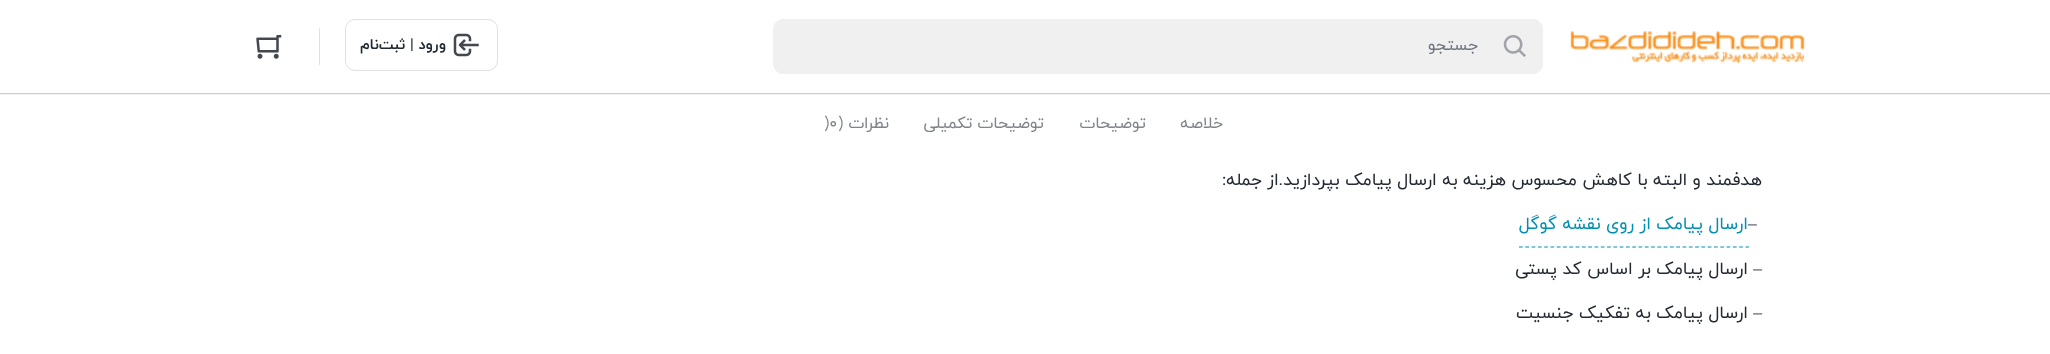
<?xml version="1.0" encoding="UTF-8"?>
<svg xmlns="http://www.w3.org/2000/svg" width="2050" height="354">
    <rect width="100%" height="100%" fill="#FFFFFF"/>
    <image x="1570" y="31" width="236" height="33" href="img_01.png"/>
    <rect x="773.5" y="19.5" width="769" height="54" rx="9.5" fill="#F0F0F1" stroke="#F0F0F1"/>
    <image x="1503" y="35" width="23" height="22" href="img_02.png"/>
    <text x="1478" y="50" font-family="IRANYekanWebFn" font-size="16.25" direction="rtl" fill="#6C757D">جستجو</text>
    <rect x="345.5" y="19.5" width="152" height="51" rx="9.5" fill="none" stroke="#E0E0E2"/>
    <image x="453" y="33" width="26" height="24" href="img_03.png"/>
    <text x="446" y="49" font-family="IRANYekanWebFn" font-size="15" font-weight="700" direction="rtl" fill="#232933">ورود | ثبت‌نام</text>
    <rect x="319" y="28" width="1" height="37" fill="#E0E0E2"/>
    <image x="256" y="35" width="26" height="24" href="img_04.png"/>
    <rect x="0" y="93" width="2050" height="2" fill="#000000" fill-opacity="0.05"/>
    <rect x="0" y="93" width="2050" height="1" fill="#000000" fill-opacity="0.14"/>
    <text x="1223" y="128" font-family="IRANYekanWebFn" font-size="16.25" direction="rtl" fill="#81858B">خلاصه</text>
    <text x="1146" y="128" font-family="IRANYekanWebFn" font-size="16.25" direction="rtl" fill="#81858B">توضیحات</text>
    <text x="1044" y="128" font-family="IRANYekanWebFn" font-size="16.25" direction="rtl" fill="#81858B">توضیحات تکمیلی</text>
    <text x="889" y="128" font-family="IRANYekanWebFn" font-size="16.25" direction="rtl" fill="#81858B">نظرات (</text>
    <text x="824" y="128" font-family="IRANYekanWebFn" font-size="16.25" fill="#81858B">)0</text>
    <text x="1762" y="185" font-family="IRANYekanWebFn" font-size="17.5" direction="rtl" fill="#232933">هدفمند و البته با کاهش محسوس هزینه به ارسال پیامک بپردازید.از جمله:</text>
    <text x="1748" y="229" font-family="Liberation Serif" font-size="17.5" fill="#232933">–</text>
    <path d="M 1519 247 H 1749" fill="none" stroke="#008EB2" stroke-width="1.2" stroke-dasharray="3.75 2.54"/>
    <text x="1748" y="229" font-family="IRANYekanWebFn" font-size="17.5" direction="rtl" fill="#008EB2">ارسال پیامک از روی نقشه گوگل</text>
    <text x="1762" y="274" font-family="Liberation Serif" font-size="17.5" direction="rtl" fill="#232933">–</text>
    <text x="1748" y="274" font-family="IRANYekanWebFn" font-size="17.5" direction="rtl" fill="#232933">ارسال پیامک بر اساس کد پستی</text>
    <text x="1762" y="318" font-family="Liberation Serif" font-size="17.5" direction="rtl" fill="#232933">–</text>
    <text x="1748" y="318" font-family="IRANYekanWebFn" font-size="17.5" direction="rtl" fill="#232933">ارسال پیامک به تفکیک جنسیت</text>
</svg>
